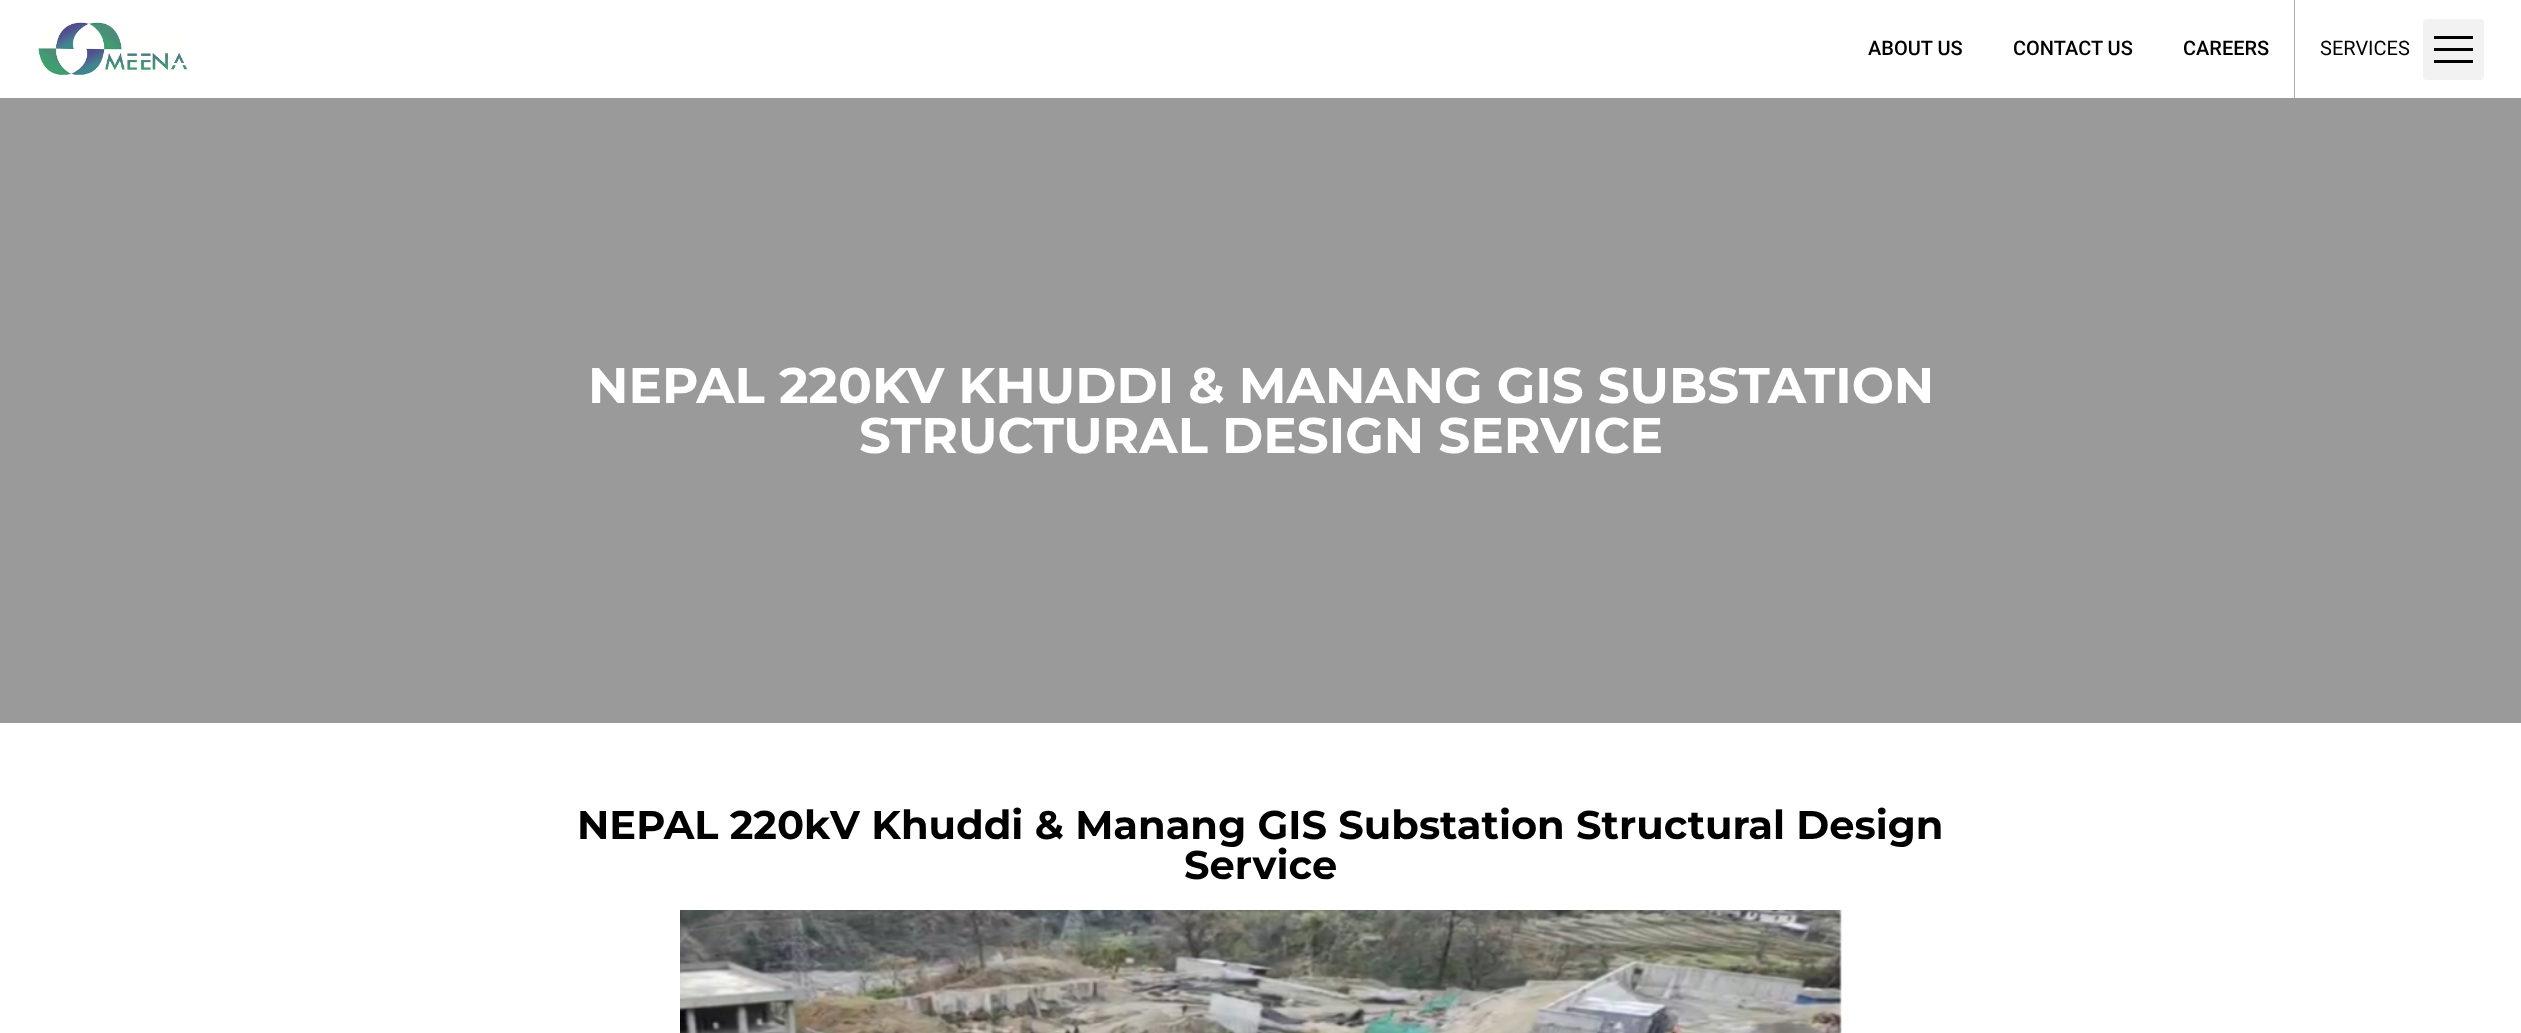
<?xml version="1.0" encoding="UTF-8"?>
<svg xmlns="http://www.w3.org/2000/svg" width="2521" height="1033">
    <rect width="100%" height="100%" fill="#FFFFFF"/>
    <image x="38" y="22" width="149" height="53" href="img_01.png"/>
    <rect x="2294" y="0" width="1" height="98" fill="#AEAEAE"/>
    <text x="1868" y="55" font-family="Roboto" font-size="20" font-weight="500" fill="#000000">ABOUT US</text>
    <text x="2013" y="55" font-family="Roboto" font-size="20" font-weight="500" fill="#000000">CONTACT US</text>
    <text x="2183" y="55" font-family="Roboto" font-size="20" font-weight="500" fill="#000000">CAREERS</text>
    <text x="2320" y="55" font-family="Roboto" font-size="20" fill="#000000">SERVICES</text>
    <rect x="2423" y="19" width="61" height="61" rx="4" fill="#F2F2F2"/>
    <rect x="2434" y="36" width="39" height="3" fill="#000000"/>
    <rect x="2434" y="48" width="39" height="3" fill="#000000"/>
    <rect x="2434" y="60" width="39" height="3" fill="#000000"/>
    <rect x="0" y="98" width="2521" height="625" fill="#9A9A9A"/>
    <text x="588" y="403" font-family="Montserrat" font-size="50" font-weight="700" fill="#FFFFFF">NEPAL 220KV KHUDDI &amp; MANANG GIS SUBSTATION</text>
    <text x="859" y="453" font-family="Montserrat" font-size="50" font-weight="700" fill="#FFFFFF">STRUCTURAL DESIGN SERVICE</text>
    <text x="577" y="839" font-family="Montserrat" font-size="40" font-weight="700" fill="#000000">NEPAL 220kV Khuddi &amp; Manang GIS Substation Structural Design</text>
    <text x="1184" y="879" font-family="Montserrat" font-size="40" font-weight="700" fill="#000000">Service</text>
    <image x="680" y="910" width="1162" height="123" href="img_02.png"/>
</svg>
